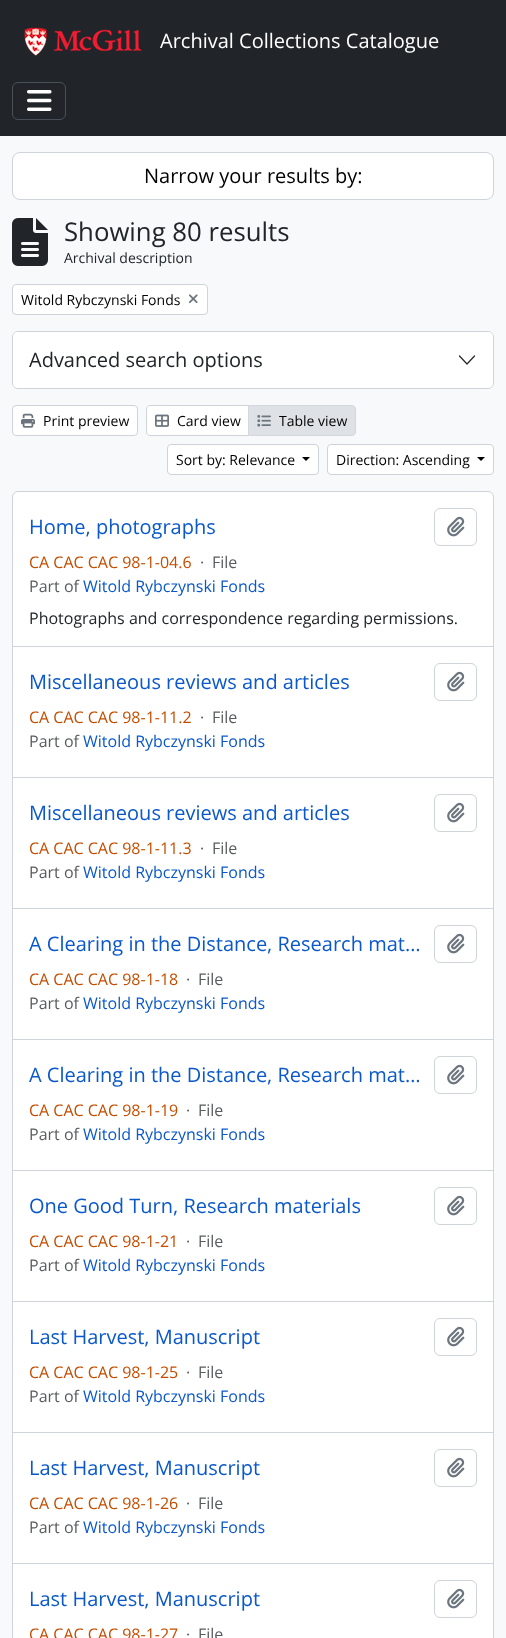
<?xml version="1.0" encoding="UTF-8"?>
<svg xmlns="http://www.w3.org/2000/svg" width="506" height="1638">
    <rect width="100%" height="100%" fill="#F8F9FA"/>
    <rect x="0" y="0" width="506" height="136" fill="#212529"/>
    <image x="24" y="27" width="118" height="29" href="img_01.png"/>
    <text x="160" y="48" font-family="Open Sans" font-size="20" fill="#FFFFFF">Archival Collections Catalogue</text>
    <rect x="12.5" y="82.5" width="53" height="37" rx="5.5" fill="none" stroke="#495057"/>
    <image x="27" y="90" width="25" height="21" href="img_02.png"/>
    <rect x="12.5" y="152.5" width="481" height="47" rx="7.5" fill="#FFFFFF" stroke="#CED4DA"/>
    <text x="144" y="183" font-family="Open Sans" font-size="20" fill="#000000">Narrow your results by:</text>
    <image x="12" y="218" width="36" height="48" href="img_03.png"/>
    <text x="64" y="241" font-family="Open Sans" font-size="25.75" fill="#212529">Showing 80 results</text>
    <text x="64" y="263" font-family="Open Sans" font-size="14" fill="#212529">Archival description</text>
    <rect x="12.5" y="284.5" width="195" height="30" rx="3.5" fill="#FFFFFF" stroke="#CED4DA"/>
    <text x="21" y="305" font-family="Open Sans" font-size="14" fill="#000000">Witold Rybczynski Fonds</text>
    <image x="188" y="294" width="10" height="10" href="img_04.png"/>
    <rect x="12.5" y="331.5" width="481" height="57" rx="5.5" fill="none" stroke="#CED4DA"/>
    <rect x="13" y="332" width="480" height="56" rx="5" fill="#FFFFFF"/>
    <text x="29" y="367" font-family="Open Sans" font-size="20" fill="#212529">Advanced search options</text>
    <path d="M 459.5 356 L 467 364 L 474.5 356" fill="none" stroke="#212529" stroke-width="1.2" stroke-linecap="round" stroke-linejoin="round"/>
    <rect x="12.5" y="405.5" width="125" height="30" rx="3.5" fill="#FFFFFF" stroke="#CED4DA"/>
    <image x="21" y="413" width="14" height="15" href="img_05.png"/>
    <text x="43" y="426" font-family="Open Sans" font-size="14" fill="#000000">Print preview</text>
    <path d="M 150 405.5 H 248.5 V 435.5 H 150 C 148 435.5 146.5 434 146.5 432 V 409 C 146.5 407 148 405.5 150 405.5 Z" fill="#FFFFFF" stroke="#CED4DA"/>
    <image x="155" y="414" width="14" height="13" href="img_06.png"/>
    <text x="177" y="426" font-family="Open Sans" font-size="14" fill="#000000">Card view</text>
    <path d="M 248.5 405.5 H 352 C 354 405.5 355.5 407 355.5 409 V 432 C 355.5 434 354 435.5 352 435.5 H 248.5 Z" fill="#DEE2E6" stroke="#D3D8DE"/>
    <image x="257" y="415" width="14" height="12" href="img_07.png"/>
    <text x="279" y="426" font-family="Open Sans" font-size="14" fill="#000000">Table view</text>
    <rect x="167.5" y="444.5" width="151" height="30" rx="3.5" fill="#FFFFFF" stroke="#CED4DA"/>
    <text x="176" y="465" font-family="Open Sans" font-size="14" fill="#000000">Sort by: Relevance</text>
    <path d="M 302 457 H 310 L 306 461 Z" fill="#000000"/>
    <rect x="327.5" y="444.5" width="166" height="30" rx="3.5" fill="#FFFFFF" stroke="#CED4DA"/>
    <text x="336" y="465" font-family="Open Sans" font-size="14" fill="#000000">Direction: Ascending</text>
    <path d="M 477 457 H 485 L 481 461 Z" fill="#000000"/>
    <rect x="12.5" y="491.5" width="481" height="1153" rx="5.5" fill="#FFFFFF" stroke="#CED4DA"/>
    <rect x="13" y="646" width="480" height="1" fill="#CED4DA"/>
    <text x="29" y="534" font-family="Open Sans" font-size="20" fill="#0A58CA">Home, photographs</text>
    <rect x="434.5" y="508.5" width="42" height="37" rx="5.5" fill="none" stroke="#CED4DA"/>
    <image x="447" y="516" width="18" height="21" href="img_08.png"/>
    <text x="29" y="568" font-family="Open Sans" font-size="16" fill="#C44E00">CA CAC CAC 98-1-04.6</text>
    <text x="200" y="568" font-family="Open Sans" font-size="16" fill="#595C5F">·</text>
    <text x="212" y="568" font-family="Open Sans" font-size="16" fill="#595C5F">File</text>
    <text x="29" y="592" font-family="Open Sans" font-size="16" fill="#595C5F">Part of</text>
    <text x="83" y="592" font-family="Open Sans" font-size="16" fill="#0A58CA">Witold Rybczynski Fonds</text>
    <text x="29" y="624" font-family="Open Sans" font-size="16" fill="#212529">Photographs and correspondence regarding permissions.</text>
    <rect x="13" y="777" width="480" height="1" fill="#CED4DA"/>
    <text x="29" y="689" font-family="Open Sans" font-size="20" fill="#0A58CA">Miscellaneous reviews and articles</text>
    <rect x="434.5" y="663.5" width="42" height="37" rx="5.5" fill="none" stroke="#CED4DA"/>
    <image x="447" y="671" width="18" height="21" href="img_08.png"/>
    <text x="29" y="723" font-family="Open Sans" font-size="16" fill="#C44E00">CA CAC CAC 98-1-11.2</text>
    <text x="200" y="723" font-family="Open Sans" font-size="16" fill="#595C5F">·</text>
    <text x="212" y="723" font-family="Open Sans" font-size="16" fill="#595C5F">File</text>
    <text x="29" y="747" font-family="Open Sans" font-size="16" fill="#595C5F">Part of</text>
    <text x="83" y="747" font-family="Open Sans" font-size="16" fill="#0A58CA">Witold Rybczynski Fonds</text>
    <rect x="13" y="908" width="480" height="1" fill="#CED4DA"/>
    <text x="29" y="820" font-family="Open Sans" font-size="20" fill="#0A58CA">Miscellaneous reviews and articles</text>
    <rect x="434.5" y="794.5" width="42" height="37" rx="5.5" fill="none" stroke="#CED4DA"/>
    <image x="447" y="802" width="18" height="21" href="img_08.png"/>
    <text x="29" y="854" font-family="Open Sans" font-size="16" fill="#C44E00">CA CAC CAC 98-1-11.3</text>
    <text x="200" y="854" font-family="Open Sans" font-size="16" fill="#595C5F">·</text>
    <text x="212" y="854" font-family="Open Sans" font-size="16" fill="#595C5F">File</text>
    <text x="29" y="878" font-family="Open Sans" font-size="16" fill="#595C5F">Part of</text>
    <text x="83" y="878" font-family="Open Sans" font-size="16" fill="#0A58CA">Witold Rybczynski Fonds</text>
    <rect x="13" y="1039" width="480" height="1" fill="#CED4DA"/>
    <text x="29" y="951" font-family="Open Sans" font-size="20" fill="#0A58CA">A Clearing in the Distance, Research mat…</text>
    <rect x="434.5" y="925.5" width="42" height="37" rx="5.5" fill="none" stroke="#CED4DA"/>
    <image x="447" y="933" width="18" height="21" href="img_08.png"/>
    <text x="29" y="985" font-family="Open Sans" font-size="16" fill="#C44E00">CA CAC CAC 98-1-18</text>
    <text x="186" y="985" font-family="Open Sans" font-size="16" fill="#595C5F">·</text>
    <text x="198" y="985" font-family="Open Sans" font-size="16" fill="#595C5F">File</text>
    <text x="29" y="1009" font-family="Open Sans" font-size="16" fill="#595C5F">Part of</text>
    <text x="83" y="1009" font-family="Open Sans" font-size="16" fill="#0A58CA">Witold Rybczynski Fonds</text>
    <rect x="13" y="1170" width="480" height="1" fill="#CED4DA"/>
    <text x="29" y="1082" font-family="Open Sans" font-size="20" fill="#0A58CA">A Clearing in the Distance, Research mat…</text>
    <rect x="434.5" y="1056.5" width="42" height="37" rx="5.5" fill="none" stroke="#CED4DA"/>
    <image x="447" y="1064" width="18" height="21" href="img_08.png"/>
    <text x="29" y="1116" font-family="Open Sans" font-size="16" fill="#C44E00">CA CAC CAC 98-1-19</text>
    <text x="186" y="1116" font-family="Open Sans" font-size="16" fill="#595C5F">·</text>
    <text x="198" y="1116" font-family="Open Sans" font-size="16" fill="#595C5F">File</text>
    <text x="29" y="1140" font-family="Open Sans" font-size="16" fill="#595C5F">Part of</text>
    <text x="83" y="1140" font-family="Open Sans" font-size="16" fill="#0A58CA">Witold Rybczynski Fonds</text>
    <rect x="13" y="1301" width="480" height="1" fill="#CED4DA"/>
    <text x="29" y="1213" font-family="Open Sans" font-size="20" fill="#0A58CA">One Good Turn, Research materials</text>
    <rect x="434.5" y="1187.5" width="42" height="37" rx="5.5" fill="none" stroke="#CED4DA"/>
    <image x="447" y="1195" width="18" height="21" href="img_08.png"/>
    <text x="29" y="1247" font-family="Open Sans" font-size="16" fill="#C44E00">CA CAC CAC 98-1-21</text>
    <text x="186" y="1247" font-family="Open Sans" font-size="16" fill="#595C5F">·</text>
    <text x="198" y="1247" font-family="Open Sans" font-size="16" fill="#595C5F">File</text>
    <text x="29" y="1271" font-family="Open Sans" font-size="16" fill="#595C5F">Part of</text>
    <text x="83" y="1271" font-family="Open Sans" font-size="16" fill="#0A58CA">Witold Rybczynski Fonds</text>
    <rect x="13" y="1432" width="480" height="1" fill="#CED4DA"/>
    <text x="29" y="1344" font-family="Open Sans" font-size="20" fill="#0A58CA">Last Harvest, Manuscript</text>
    <rect x="434.5" y="1318.5" width="42" height="37" rx="5.5" fill="none" stroke="#CED4DA"/>
    <image x="447" y="1326" width="18" height="21" href="img_08.png"/>
    <text x="29" y="1378" font-family="Open Sans" font-size="16" fill="#C44E00">CA CAC CAC 98-1-25</text>
    <text x="186" y="1378" font-family="Open Sans" font-size="16" fill="#595C5F">·</text>
    <text x="198" y="1378" font-family="Open Sans" font-size="16" fill="#595C5F">File</text>
    <text x="29" y="1402" font-family="Open Sans" font-size="16" fill="#595C5F">Part of</text>
    <text x="83" y="1402" font-family="Open Sans" font-size="16" fill="#0A58CA">Witold Rybczynski Fonds</text>
    <rect x="13" y="1563" width="480" height="1" fill="#CED4DA"/>
    <text x="29" y="1475" font-family="Open Sans" font-size="20" fill="#0A58CA">Last Harvest, Manuscript</text>
    <rect x="434.5" y="1449.5" width="42" height="37" rx="5.5" fill="none" stroke="#CED4DA"/>
    <image x="447" y="1457" width="18" height="21" href="img_08.png"/>
    <text x="29" y="1509" font-family="Open Sans" font-size="16" fill="#C44E00">CA CAC CAC 98-1-26</text>
    <text x="186" y="1509" font-family="Open Sans" font-size="16" fill="#595C5F">·</text>
    <text x="198" y="1509" font-family="Open Sans" font-size="16" fill="#595C5F">File</text>
    <text x="29" y="1533" font-family="Open Sans" font-size="16" fill="#595C5F">Part of</text>
    <text x="83" y="1533" font-family="Open Sans" font-size="16" fill="#0A58CA">Witold Rybczynski Fonds</text>
    <text x="29" y="1606" font-family="Open Sans" font-size="20" fill="#0A58CA">Last Harvest, Manuscript</text>
    <rect x="434.5" y="1580.5" width="42" height="37" rx="5.5" fill="none" stroke="#CED4DA"/>
    <image x="447" y="1588" width="18" height="21" href="img_08.png"/>
    <text x="29" y="1640" font-family="Open Sans" font-size="16" fill="#C44E00">CA CAC CAC 98-1-27</text>
    <text x="186" y="1640" font-family="Open Sans" font-size="16" fill="#595C5F">·</text>
    <text x="198" y="1640" font-family="Open Sans" font-size="16" fill="#595C5F">File</text>
</svg>
